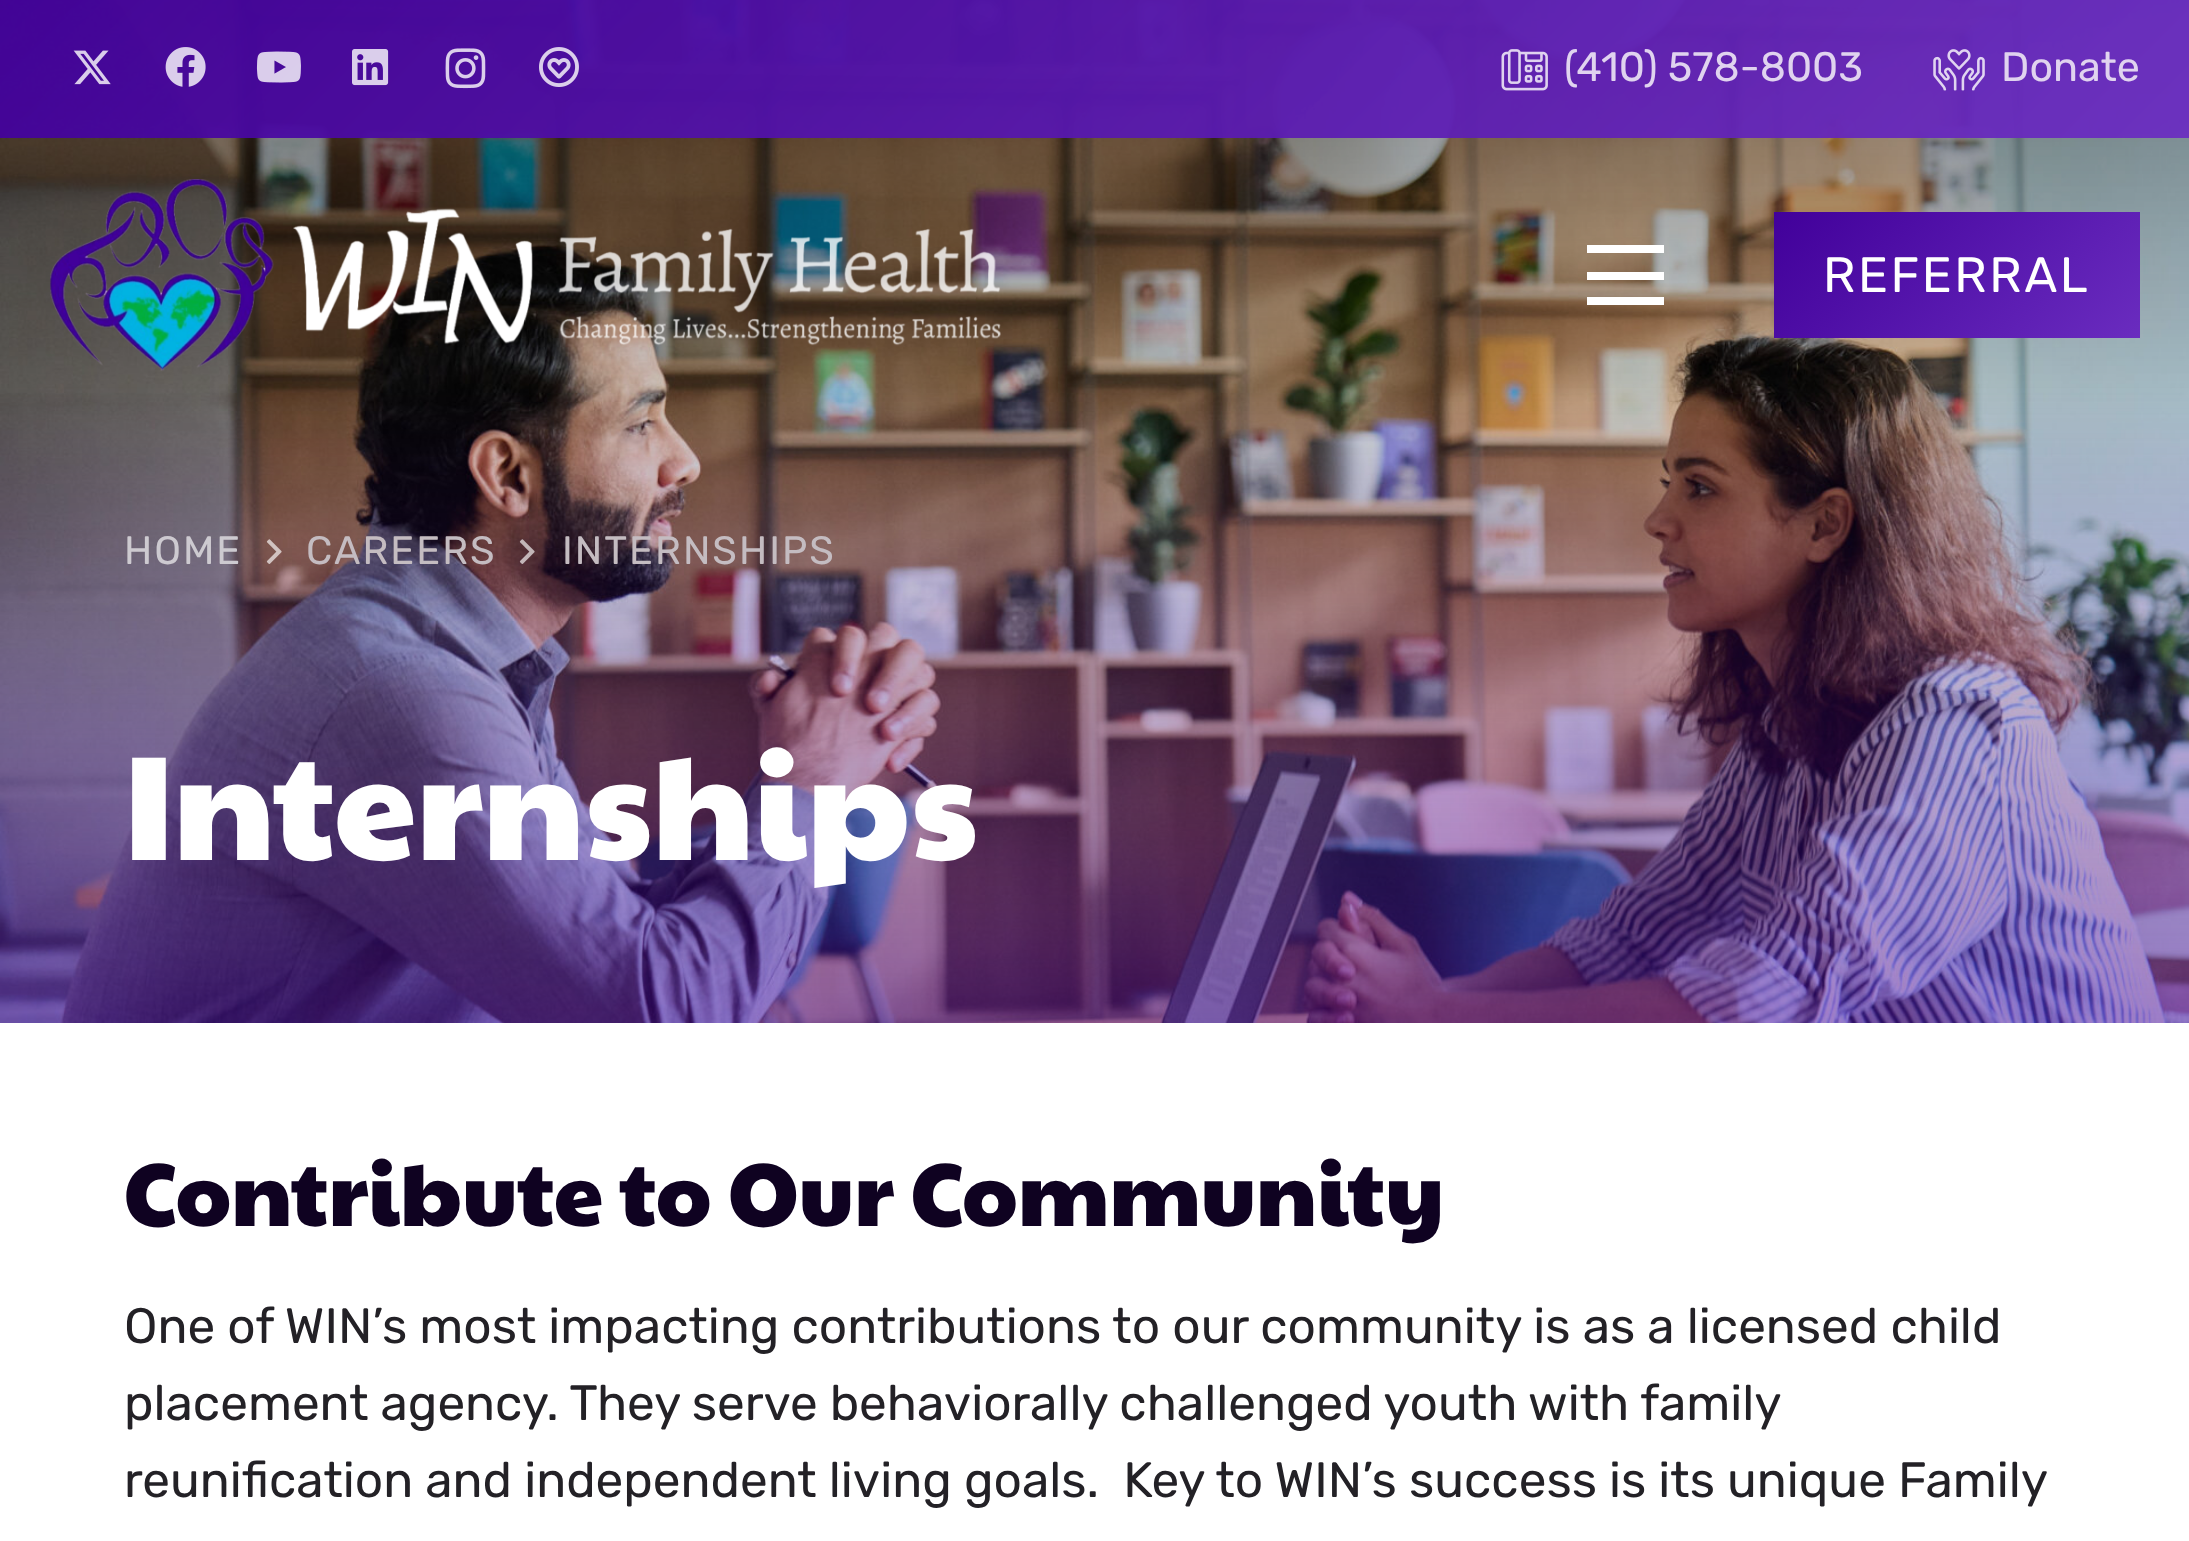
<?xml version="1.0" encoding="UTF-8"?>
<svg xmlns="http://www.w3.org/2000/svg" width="2189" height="1541">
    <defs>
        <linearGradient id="g1" gradientUnits="userSpaceOnUse" x1="1834" y1="152" x2="2080" y2="398"><stop offset="0" stop-color="#41009A"/><stop offset="1" stop-color="#6A2CBF"/></linearGradient>
    </defs>
    <rect width="100%" height="100%" fill="#FFFFFF"/>
    <image x="0" y="0" width="2189" height="1023" href="img_10.png"/>
    <image x="73" y="50" width="38" height="35" href="img_01.png"/>
    <image x="165" y="47" width="41" height="40" href="img_02.png"/>
    <image x="256" y="51" width="45" height="32" href="img_03.png"/>
    <image x="352" y="49" width="37" height="37" href="img_04.png"/>
    <image x="445" y="48" width="41" height="41" href="img_05.png"/>
    <image x="539" y="47" width="40" height="40" href="img_06.png"/>
    <image x="1501" y="49" width="47" height="42" href="img_07.png"/>
    <text x="1564" y="81" font-family="Rubik" font-size="41.25" fill="#E0D3EF">(410) 578-8003</text>
    <image x="1933" y="49" width="52" height="42" href="img_08.png"/>
    <text x="2001" y="81" font-family="Rubik" font-size="41.25" fill="#E0D3EF">Donate</text>
    <image x="50" y="179" width="951" height="192" href="img_09.png"/>
    <rect x="1587" y="272" width="77" height="8" fill="#FFFFFF"/>
    <rect x="1587" y="245" width="77" height="8" fill="#FFFFFF"/>
    <rect x="1587" y="297" width="77" height="8" fill="#FFFFFF"/>
    <rect x="1774" y="212" width="366" height="126" fill="url(#g1)"/>
    <text x="1823" y="292" font-family="Rubik" font-size="49.5" letter-spacing="2.5" fill="#FFFFFF">REFERRAL</text>
    <text x="124" y="564" font-family="Rubik" font-size="39.5" letter-spacing="2" fill="#CDCAD0">HOME</text>
    <image x="266" y="539" width="16" height="25" href="img_11.png"/>
    <text x="306" y="564" font-family="Rubik" font-size="39.5" letter-spacing="2" fill="#C4BCC1">CAREERS</text>
    <image x="519" y="539" width="16" height="25" href="img_12.png"/>
    <text x="562" y="564" font-family="Rubik" font-size="39.5" letter-spacing="2" fill="#C4BCC1">INTERNSHIPS</text>
    <text x="124" y="860" font-family="Paytone One" font-size="148.5" fill="#FFFFFF">Internships</text>
    <text x="124" y="1226" font-family="Paytone One" font-size="89.1" fill="#0F0221">Contribute to Our Community</text>
    <text font-family="Rubik" font-size="49.5" fill="#232126" xml:space="preserve"><tspan x="124" y="1343">One of WIN’s most impacting contributions to our community is as a licensed child</tspan><tspan x="124" y="1420" word-spacing="-0.25">placement agency. They serve behaviorally challenged youth with family</tspan><tspan x="124" y="1497">reunification and independent living goals.  Key to WIN’s success is its unique Family</tspan></text>
</svg>
